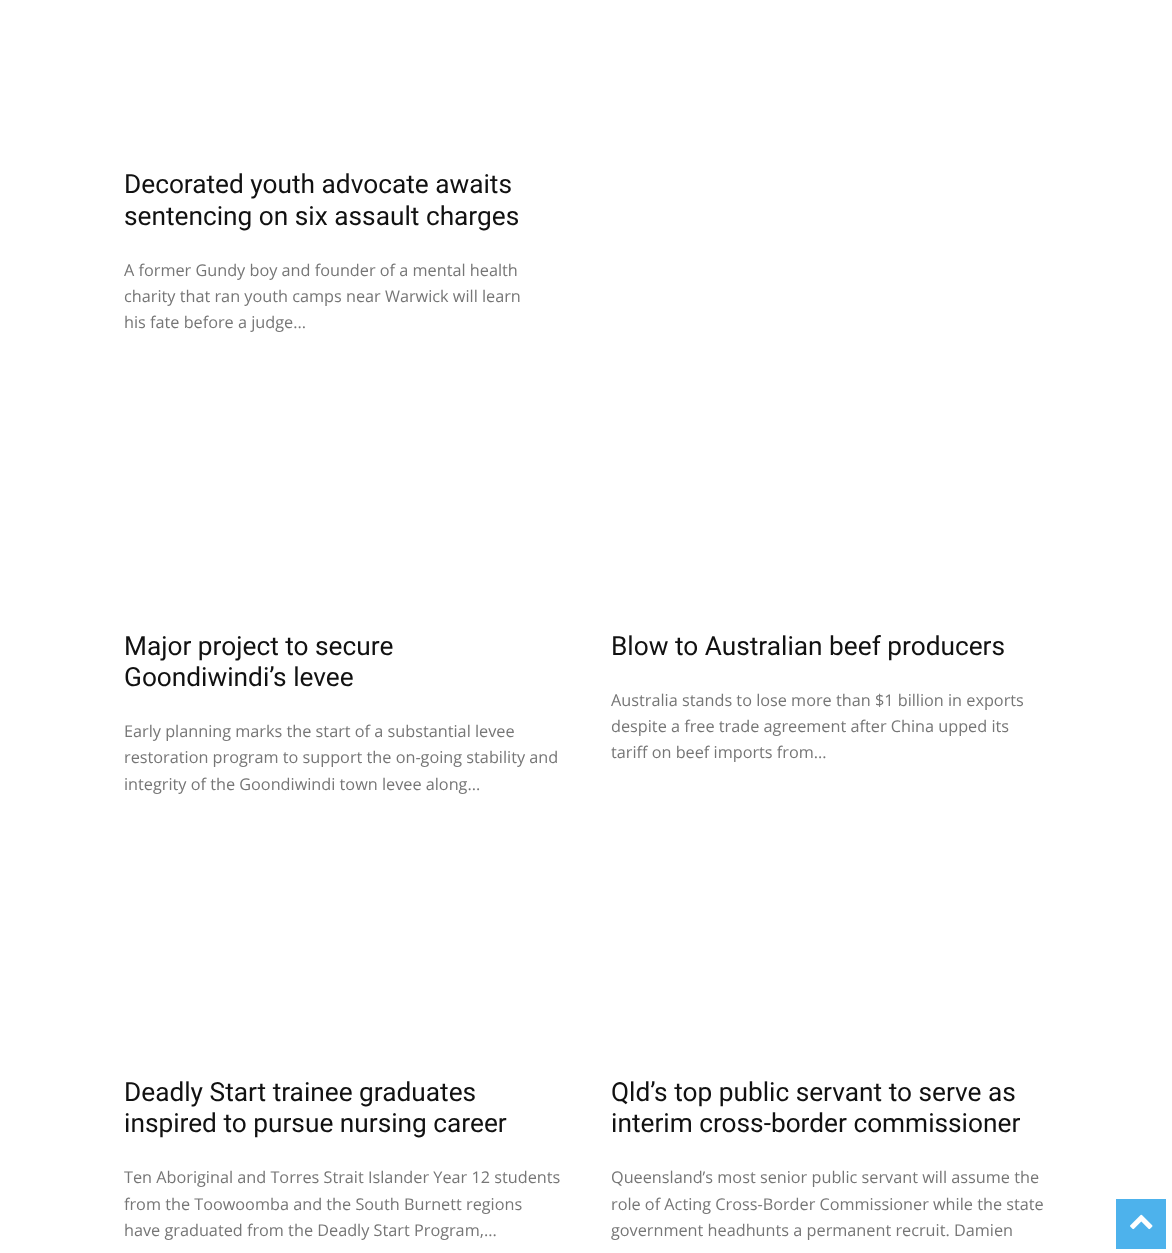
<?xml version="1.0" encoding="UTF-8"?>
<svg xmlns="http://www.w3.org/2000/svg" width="1172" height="1253">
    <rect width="100%" height="100%" fill="#FFFFFF"/>
    <text font-family="Roboto" font-size="26.25" fill="#111111">
        <tspan x="124" y="193">Decorated youth advocate awaits</tspan>
        <tspan x="124" y="225">sentencing on six assault charges</tspan>
    </text>
    <text font-family="Open Sans" font-size="16.25" fill="#767676">
        <tspan x="124" y="276">A former Gundy boy and founder of a mental health</tspan>
        <tspan x="124" y="302">charity that ran youth camps near Warwick will learn</tspan>
        <tspan x="124" y="328">his fate before a judge...</tspan>
    </text>
    <text font-family="Roboto" font-size="26.25" fill="#111111">
        <tspan x="124" y="655">Major project to secure</tspan>
        <tspan x="124" y="686">Goondiwindi’s levee</tspan>
    </text>
    <text font-family="Open Sans" font-size="16.25" fill="#767676">
        <tspan x="124" y="737">Early planning marks the start of a substantial levee</tspan>
        <tspan x="124" y="763">restoration program to support the on-going stability and</tspan>
        <tspan x="124" y="790">integrity of the Goondiwindi town levee along...</tspan>
    </text>
    <text x="611" y="655" font-family="Roboto" font-size="26.25" fill="#111111">Blow to Australian beef producers</text>
    <text font-family="Open Sans" font-size="16.25" fill="#767676">
        <tspan x="611" y="706">Australia stands to lose more than $1 billion in exports</tspan>
        <tspan x="611" y="732">despite a free trade agreement after China upped its</tspan>
        <tspan x="611" y="758">tariff on beef imports from...</tspan>
    </text>
    <text font-family="Roboto" font-size="26.25" fill="#111111">
        <tspan x="124" y="1101">Deadly Start trainee graduates</tspan>
        <tspan x="124" y="1132">inspired to pursue nursing career</tspan>
    </text>
    <text font-family="Open Sans" font-size="16.25" fill="#767676">
        <tspan x="124" y="1183">Ten Aboriginal and Torres Strait Islander Year 12 students</tspan>
        <tspan x="124" y="1210">from the Toowoomba and the South Burnett regions</tspan>
        <tspan x="124" y="1236">have graduated from the Deadly Start Program,...</tspan>
    </text>
    <text font-family="Roboto" font-size="26.25" fill="#111111">
        <tspan x="611" y="1101">Qld’s top public servant to serve as</tspan>
        <tspan x="611" y="1132">interim cross-border commissioner</tspan>
    </text>
    <text font-family="Open Sans" font-size="16.25" fill="#767676">
        <tspan x="611" y="1183">Queensland’s most senior public servant will assume the</tspan>
        <tspan x="611" y="1210">role of Acting Cross-Border Commissioner while the state</tspan>
        <tspan x="611" y="1236">government headhunts a permanent recruit. Damien</tspan>
    </text>
    <rect x="1116" y="1199" width="50" height="50" fill="#4DB2EC"/>
    <image x="1130" y="1214" width="23" height="16" href="img_01.png"/>
</svg>
